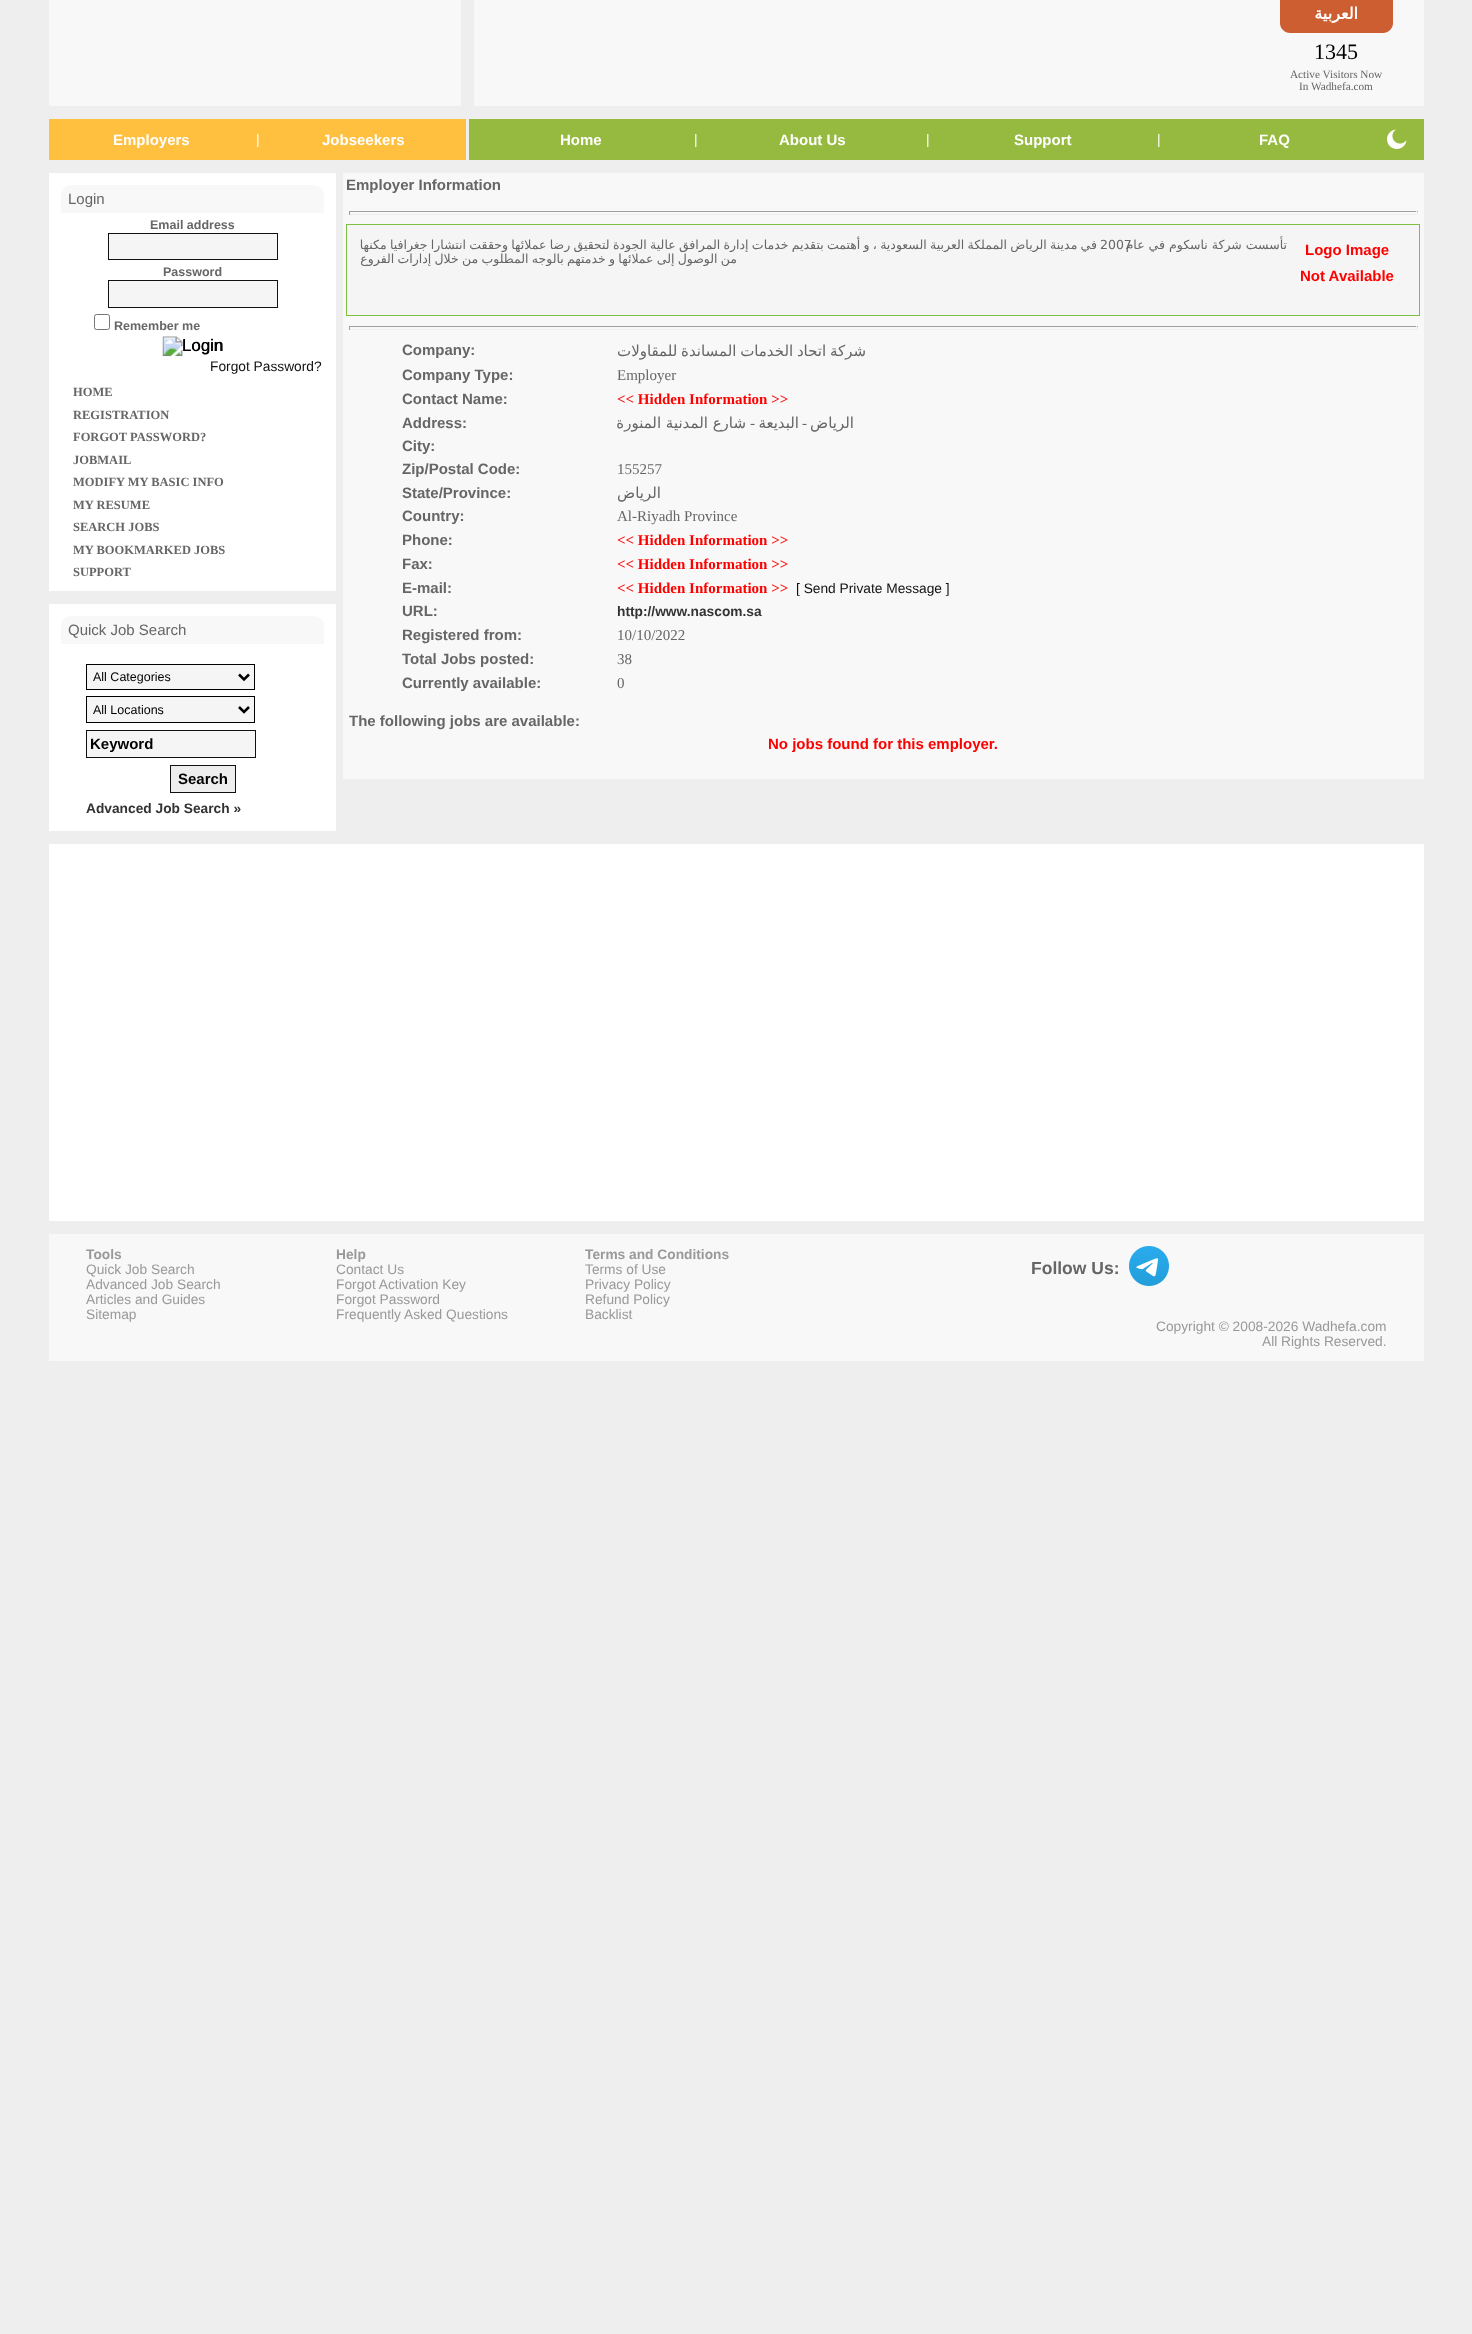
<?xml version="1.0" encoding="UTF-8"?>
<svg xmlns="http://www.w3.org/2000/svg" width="1472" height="2334">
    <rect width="100%" height="100%" fill="#EEEEEE"/>
    <rect x="49" y="0" width="412" height="106" fill="#F8F8F8"/>
    <rect x="474" y="0" width="950" height="106" fill="#F8F8F8"/>
    <path d="M 1280 0 H 1393 V 23 C 1393 28.5 1388.5 33 1383 33 H 1290 C 1284.5 33 1280 28.5 1280 23 Z" fill="#CC5E31"/>
    <text x="1358" y="19" font-family="DejaVu Sans" font-size="16" font-weight="700" direction="rtl" fill="#FFFFFF">العربية</text>
    <text x="1314" y="59" font-family="Liberation Serif" font-size="22" fill="#000000">1345</text>
    <text x="1290" y="78" font-family="Liberation Serif" font-size="11.25" fill="#666666">Active Visitors Now</text>
    <text x="1299" y="90" font-family="Liberation Serif" font-size="11.25" fill="#666666">In Wadhefa.com</text>
    <rect x="49" y="119" width="417" height="41" fill="#FFBF3F"/>
    <text x="113" y="145" font-family="Liberation Sans" font-size="15" font-weight="700" fill="#FFFFFF">Employers</text>
    <text x="256" y="144" font-family="Liberation Sans" font-size="13.75" fill="#FFFFFF">|</text>
    <text x="322" y="145" font-family="Liberation Sans" font-size="15" font-weight="700" fill="#FFFFFF">Jobseekers</text>
    <rect x="469" y="119" width="955" height="41" fill="#96BA3F"/>
    <text x="560" y="145" font-family="Liberation Sans" font-size="15" font-weight="700" fill="#FFFFFF">Home</text>
    <text x="694" y="144" font-family="Liberation Sans" font-size="13.75" fill="#FFFFFF">|</text>
    <text x="779" y="145" font-family="Liberation Sans" font-size="15" font-weight="700" fill="#FFFFFF">About Us</text>
    <text x="926" y="144" font-family="Liberation Sans" font-size="13.75" fill="#FFFFFF">|</text>
    <text x="1014" y="145" font-family="Liberation Sans" font-size="15" font-weight="700" fill="#FFFFFF">Support</text>
    <text x="1157" y="144" font-family="Liberation Sans" font-size="13.75" fill="#FFFFFF">|</text>
    <text x="1259" y="145" font-family="Liberation Sans" font-size="15" font-weight="700" fill="#FFFFFF">FAQ</text>
    <image x="1387" y="129" width="20" height="20" href="img_01.png"/>
    <rect x="49" y="173" width="287" height="418" fill="#FFFFFF"/>
    <path d="M 71 185 H 314 C 319.5 185 324 189.5 324 195 V 213 H 61 V 195 C 61 189.5 65.5 185 71 185 Z" fill="#F8F8F8"/>
    <text x="68" y="204" font-family="Liberation Sans" font-size="15" fill="#666666">Login</text>
    <text x="150" y="229" font-family="Liberation Sans" font-size="12.5" font-weight="700" fill="#666666">Email address</text>
    <rect x="108.5" y="233.5" width="169" height="26" fill="#F5F5F5" stroke="#111111"/>
    <text x="163" y="276" font-family="Liberation Sans" font-size="12.5" font-weight="700" fill="#666666">Password</text>
    <rect x="108.5" y="280.5" width="169" height="27" fill="#F5F5F5" stroke="#111111"/>
    <rect x="94.5" y="314.5" width="15" height="15" rx="2" fill="none" stroke="#767676"/>
    <text x="114" y="330" font-family="Liberation Sans" font-size="12.5" font-weight="700" fill="#666666">Remember me</text>
    <image x="162" y="336" width="60" height="21" href="img_02.png"/>
    <text x="182" y="351" font-family="Liberation Sans" font-size="17" fill="#000000">Login</text>
    <text x="210" y="371" font-family="Liberation Sans" font-size="13.75" fill="#111111">Forgot Password?</text>
    <text font-family="Liberation Serif" font-size="12.5" font-weight="700" fill="#666666">
        <tspan x="73" y="396">HOME</tspan>
        <tspan x="73" y="419">REGISTRATION</tspan>
        <tspan x="73" y="441">FORGOT PASSWORD?</tspan>
        <tspan x="73" y="464">JOBMAIL</tspan>
        <tspan x="73" y="486">MODIFY MY BASIC INFO</tspan>
        <tspan x="73" y="509">MY RESUME</tspan>
        <tspan x="73" y="531">SEARCH JOBS</tspan>
        <tspan x="73" y="554">MY BOOKMARKED JOBS</tspan>
        <tspan x="73" y="576">SUPPORT</tspan>
    </text>
    <rect x="49" y="604" width="287" height="227" fill="#FFFFFF"/>
    <path d="M 71 616 H 314 C 319.5 616 324 620.5 324 626 V 644 H 61 V 626 C 61 620.5 65.5 616 71 616 Z" fill="#F8F8F8"/>
    <text x="68" y="635" font-family="Liberation Sans" font-size="15" fill="#666666">Quick Job Search</text>
    <rect x="86.5" y="664.5" width="168" height="25" fill="#F5F5F5" stroke="#000000"/>
    <path d="M 239 674.5 L 244 679.5 L 249 674.5" fill="none" stroke="#000000" stroke-width="2.5"/>
    <text x="93" y="681" font-family="Liberation Sans" font-size="12.5" fill="#000000">All Categories</text>
    <rect x="86.5" y="696.5" width="168" height="26" fill="#F5F5F5" stroke="#000000"/>
    <path d="M 239 707 L 244 712 L 249 707" fill="none" stroke="#000000" stroke-width="2.5"/>
    <text x="93" y="714" font-family="Liberation Sans" font-size="12.5" fill="#000000">All Locations</text>
    <rect x="86.5" y="730.5" width="169" height="27" fill="#F5F5F5" stroke="#111111"/>
    <text x="90" y="749" font-family="Liberation Sans" font-size="15" font-weight="700" fill="#000000">Keyword</text>
    <rect x="170.5" y="765.5" width="65" height="27" fill="#EEEEEE" stroke="#111111"/>
    <text x="178" y="784" font-family="Liberation Sans" font-size="15" font-weight="700" fill="#000000">Search</text>
    <text x="86" y="813" font-family="Liberation Sans" font-size="13.75" font-weight="700" fill="#333333">Advanced Job Search »</text>
    <rect x="343" y="173" width="1081" height="606" fill="#F8F8F8"/>
    <text x="346" y="190" font-family="Liberation Sans" font-size="15" font-weight="700" fill="#666666">Employer Information</text>
    <rect x="349" y="211" width="1069" height="1" fill="#9F9F9F"/>
    <rect x="1416" y="211" width="1" height="4" fill="#EEEEEE"/>
    <rect x="349" y="214" width="1069" height="1" fill="#EEEEEE"/>
    <rect x="349" y="211" width="1" height="4" fill="#9F9F9F"/>
    <rect x="346.5" y="224.5" width="1073" height="91" fill="#F5F5F5" stroke="#7DBE43"/>
    <text x="1097" y="249" word-spacing="-0.7" font-family="DejaVu Sans" font-size="12.5" direction="rtl" fill="#666666">في مدينة الرياض المملكة العربية السعودية ، و أهتمت بتقديم خدمات إدارة المرافق عالية الجودة لتحقيق رضا عملائها وحققت انتشارا جغرافيا مكنها</text>
    <text x="1100" y="249" font-family="DejaVu Sans" font-size="12.5" fill="#666666">2007</text>
    <text x="1287" y="249" font-family="DejaVu Sans" font-size="12.5" direction="rtl" fill="#666666">تأسست شركة ناسكوم في عام</text>
    <text x="1305" y="255" font-family="Liberation Sans" font-size="15" font-weight="700" fill="#FF0000">Logo Image</text>
    <text x="1300" y="281" font-family="Liberation Sans" font-size="15" font-weight="700" fill="#FF0000">Not Available</text>
    <text x="737" y="263" word-spacing="-0.75" font-family="DejaVu Sans" font-size="12.5" direction="rtl" fill="#666666">من الوصول إلى عملائها و خدمتهم بالوجه المطلوب من خلال إدارات الفروع</text>
    <rect x="349" y="326" width="1069" height="1" fill="#9F9F9F"/>
    <rect x="1416" y="326" width="1" height="4" fill="#EEEEEE"/>
    <rect x="349" y="329" width="1069" height="1" fill="#EEEEEE"/>
    <rect x="349" y="326" width="1" height="4" fill="#9F9F9F"/>
    <text x="402" y="355" font-family="Liberation Sans" font-size="15" font-weight="700" fill="#666666">Company:</text>
    <text x="866" y="356" word-spacing="-1" font-family="DejaVu Sans" font-size="15" direction="rtl" fill="#666666">شركة اتحاد الخدمات المساندة للمقاولات</text>
    <text x="402" y="380" font-family="Liberation Sans" font-size="15" font-weight="700" fill="#666666">Company Type:</text>
    <text x="617" y="380" font-family="Liberation Serif" font-size="15" fill="#666666">Employer</text>
    <text x="402" y="404" font-family="Liberation Sans" font-size="15" font-weight="700" fill="#666666">Contact Name:</text>
    <text x="617" y="404" font-family="Liberation Serif" font-size="15" font-weight="700" fill="#FF0000">&lt;&lt; Hidden Information &gt;&gt;</text>
    <text x="402" y="428" font-family="Liberation Sans" font-size="15" font-weight="700" fill="#666666">Address:</text>
    <text x="746" y="428" font-family="DejaVu Sans" font-size="15" direction="rtl" fill="#666666">شارع المدنية المنورة</text>
    <text x="755" y="428" font-family="Liberation Serif" font-size="15" direction="rtl" fill="#666666">-</text>
    <text x="799" y="428" font-family="DejaVu Sans" font-size="15" direction="rtl" fill="#666666">البديعة</text>
    <text x="807" y="428" font-family="Liberation Serif" font-size="15" direction="rtl" fill="#666666">-</text>
    <text x="854" y="428" font-family="DejaVu Sans" font-size="15" direction="rtl" fill="#666666">الرياض</text>
    <text font-family="Liberation Sans" font-size="15" font-weight="700" fill="#666666">
        <tspan x="402" y="451">City:</tspan>
        <tspan x="402" y="474">Zip/Postal Code:</tspan>
    </text>
    <text x="617" y="474" font-family="Liberation Serif" font-size="15" fill="#666666">155257</text>
    <text x="402" y="498" font-family="Liberation Sans" font-size="15" font-weight="700" fill="#666666">State/Province:</text>
    <text x="661" y="498" font-family="DejaVu Sans" font-size="15" direction="rtl" fill="#666666">الرياض</text>
    <text x="402" y="521" font-family="Liberation Sans" font-size="15" font-weight="700" fill="#666666">Country:</text>
    <text x="617" y="521" font-family="Liberation Serif" font-size="15" fill="#666666">Al-Riyadh Province</text>
    <text x="402" y="545" font-family="Liberation Sans" font-size="15" font-weight="700" fill="#666666">Phone:</text>
    <text x="617" y="545" font-family="Liberation Serif" font-size="15" font-weight="700" fill="#FF0000">&lt;&lt; Hidden Information &gt;&gt;</text>
    <text x="402" y="569" font-family="Liberation Sans" font-size="15" font-weight="700" fill="#666666">Fax:</text>
    <text x="617" y="569" font-family="Liberation Serif" font-size="15" font-weight="700" fill="#FF0000">&lt;&lt; Hidden Information &gt;&gt;</text>
    <text x="402" y="593" font-family="Liberation Sans" font-size="15" font-weight="700" fill="#666666">E-mail:</text>
    <text x="617" y="593" font-family="Liberation Serif" font-size="15" font-weight="700" fill="#FF0000">&lt;&lt; Hidden Information &gt;&gt;</text>
    <text x="796" y="593" font-family="Liberation Sans" font-size="13.75" fill="#111111">[ Send Private Message ]</text>
    <text x="402" y="616" font-family="Liberation Sans" font-size="15" font-weight="700" fill="#666666">URL:</text>
    <text x="617" y="616" font-family="Liberation Sans" font-size="13.75" font-weight="700" fill="#333333">http://www.nascom.sa</text>
    <text x="402" y="640" font-family="Liberation Sans" font-size="15" font-weight="700" fill="#666666">Registered from:</text>
    <text x="617" y="640" font-family="Liberation Serif" font-size="15" fill="#666666">10/10/2022</text>
    <text x="402" y="664" font-family="Liberation Sans" font-size="15" font-weight="700" fill="#666666">Total Jobs posted:</text>
    <text x="617" y="664" font-family="Liberation Serif" font-size="15" fill="#666666">38</text>
    <text x="402" y="688" font-family="Liberation Sans" font-size="15" font-weight="700" fill="#666666">Currently available:</text>
    <text x="617" y="688" font-family="Liberation Serif" font-size="15" fill="#666666">0</text>
    <text x="349" y="726" font-family="Liberation Sans" font-size="15" font-weight="700" fill="#666666">The following jobs are available:</text>
    <text x="768" y="749" font-family="Liberation Sans" font-size="15" font-weight="700" fill="#FF0000">No jobs found for this employer.</text>
    <rect x="49" y="844" width="1375" height="377" fill="#FFFFFF"/>
    <rect x="49" y="1234" width="1375" height="127" fill="#F8F8F8"/>
    <text x="86" y="1259" font-family="Liberation Sans" font-size="13.75" font-weight="700" fill="#999999">Tools</text>
    <text font-family="Liberation Sans" font-size="13.75" fill="#999999">
        <tspan x="86" y="1274">Quick Job Search</tspan>
        <tspan x="86" y="1289">Advanced Job Search</tspan>
        <tspan x="86" y="1304">Articles and Guides</tspan>
        <tspan x="86" y="1319">Sitemap</tspan>
    </text>
    <text x="336" y="1259" font-family="Liberation Sans" font-size="13.75" font-weight="700" fill="#999999">Help</text>
    <text font-family="Liberation Sans" font-size="13.75" fill="#999999">
        <tspan x="336" y="1274">Contact Us</tspan>
        <tspan x="336" y="1289">Forgot Activation Key</tspan>
        <tspan x="336" y="1304">Forgot Password</tspan>
        <tspan x="336" y="1319">Frequently Asked Questions</tspan>
    </text>
    <text x="585" y="1259" font-family="Liberation Sans" font-size="13.75" font-weight="700" fill="#999999">Terms and Conditions</text>
    <text font-family="Liberation Sans" font-size="13.75" fill="#999999">
        <tspan x="585" y="1274">Terms of Use</tspan>
        <tspan x="585" y="1289">Privacy Policy</tspan>
        <tspan x="585" y="1304">Refund Policy</tspan>
        <tspan x="585" y="1319">Backlist</tspan>
    </text>
    <text x="1031" y="1274" font-family="Liberation Sans" font-size="17.5" font-weight="700" fill="#666666">Follow Us:</text>
    <image x="1129" y="1246" width="40" height="40" href="img_03.png"/>
    <text x="1156" y="1331" font-family="Liberation Sans" font-size="13.75" fill="#999999">Copyright © 2008-2026 Wadhefa.com</text>
    <text x="1262" y="1346" font-family="Liberation Sans" font-size="13.75" fill="#999999">All Rights Reserved.</text>
</svg>
